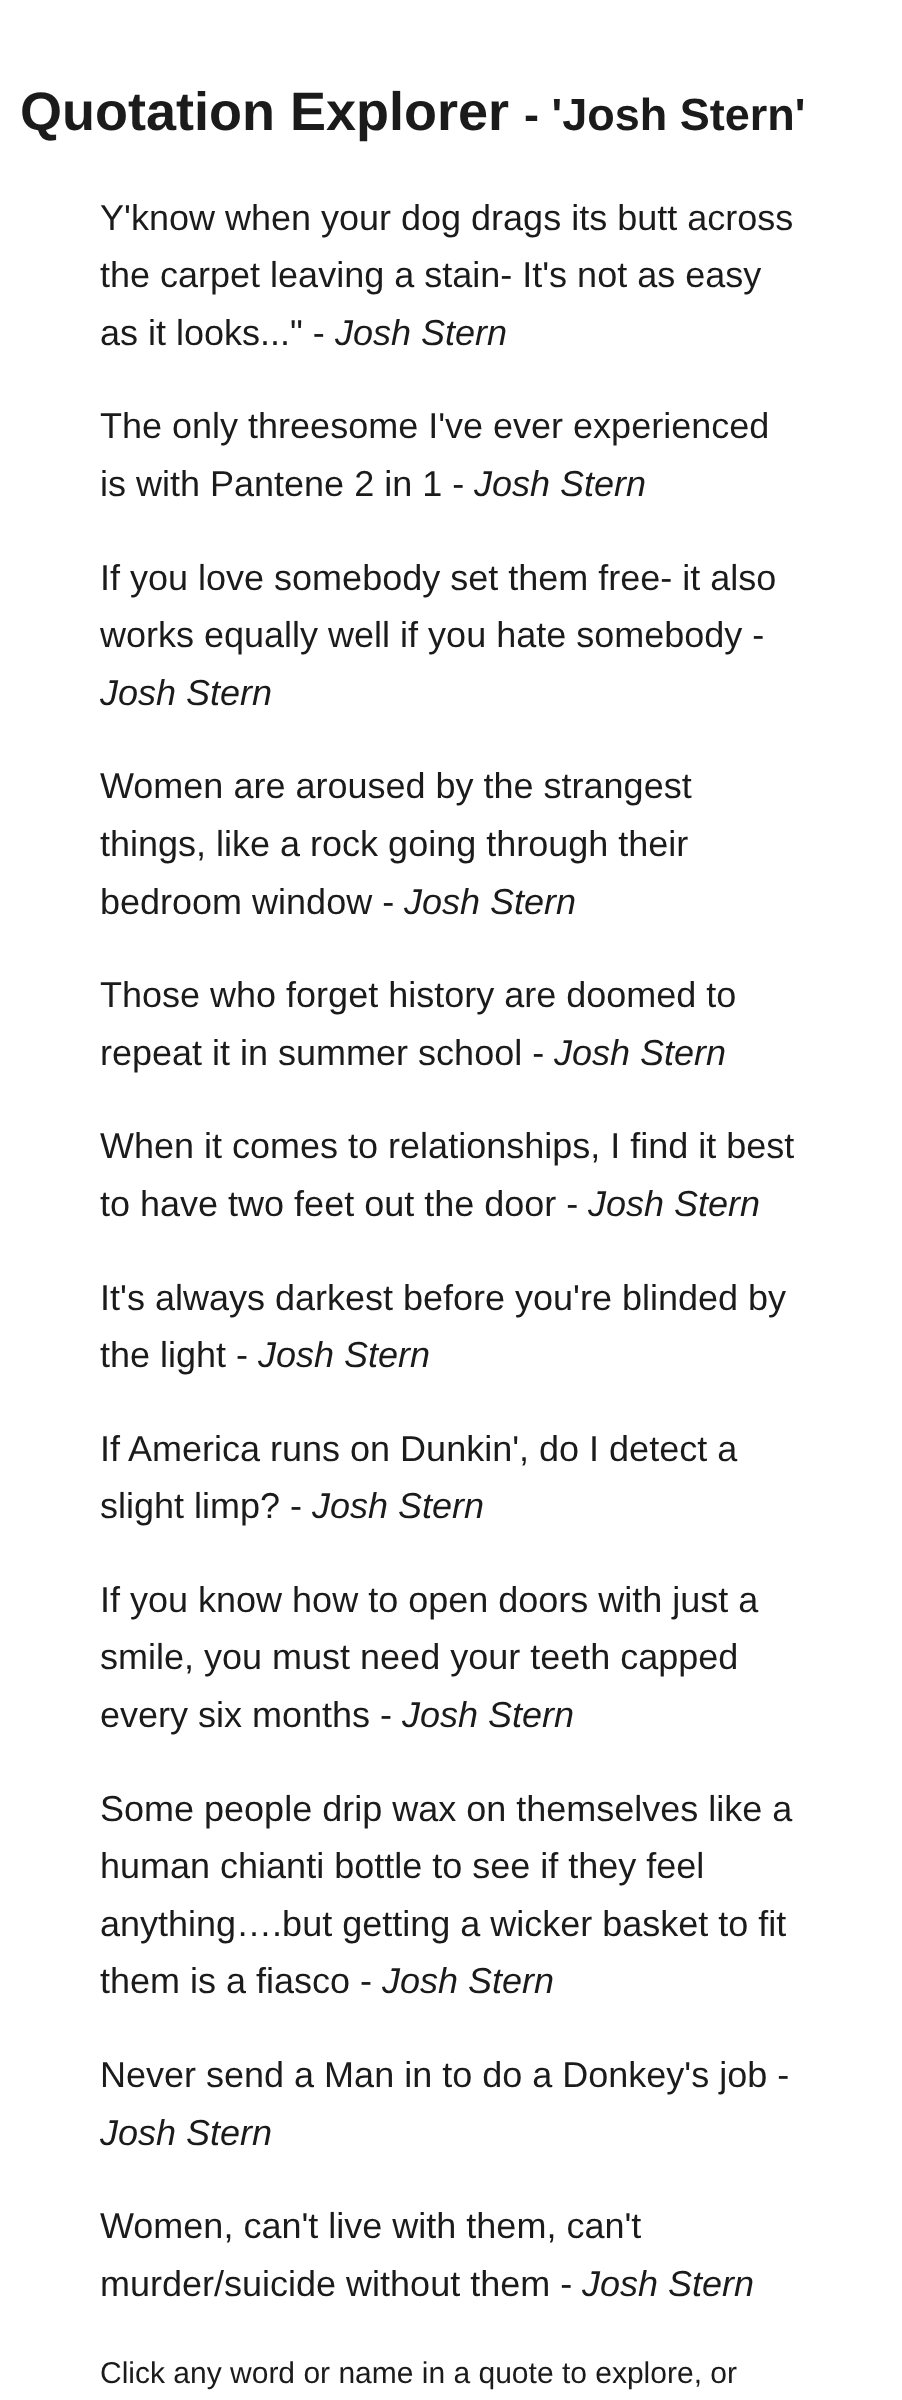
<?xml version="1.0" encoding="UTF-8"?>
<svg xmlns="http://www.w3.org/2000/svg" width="902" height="2400">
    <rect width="100%" height="100%" fill="#FFFFFF"/>
    <text x="20" y="130" font-family="Liberation Sans" font-size="54" font-weight="700" fill="#1B1B1B">Quotation Explorer</text>
    <text x="524" y="130" font-family="Liberation Sans" font-size="45" font-weight="700" fill="#1B1B1B">- 'Josh Stern'</text>
    <text font-family="Liberation Sans" font-size="36" fill="#1B1B1B">
        <tspan x="100" y="230">Y'know when your dog drags its butt across</tspan>
        <tspan x="100" y="287">the carpet leaving a stain- It's not as easy</tspan>
        <tspan x="100" y="345">as it looks..." -</tspan>
    </text>
    <text x="335" y="345" font-family="Liberation Sans" font-size="36" font-style="italic" fill="#1B1B1B">Josh Stern</text>
    <text font-family="Liberation Sans" font-size="36" fill="#1B1B1B">
        <tspan x="100" y="438">The only threesome I've ever experienced</tspan>
        <tspan x="100" y="496">is with Pantene 2 in 1 -</tspan>
    </text>
    <text x="474" y="496" font-family="Liberation Sans" font-size="36" font-style="italic" fill="#1B1B1B">Josh Stern</text>
    <text font-family="Liberation Sans" font-size="36" fill="#1B1B1B">
        <tspan x="100" y="590">If you love somebody set them free- it also</tspan>
        <tspan x="100" y="647">works equally well if you hate somebody -</tspan>
    </text>
    <text x="100" y="705" font-family="Liberation Sans" font-size="36" font-style="italic" fill="#1B1B1B">Josh Stern</text>
    <text font-family="Liberation Sans" font-size="36" fill="#1B1B1B">
        <tspan x="100" y="798">Women are aroused by the strangest</tspan>
        <tspan x="100" y="856">things, like a rock going through their</tspan>
        <tspan x="100" y="914">bedroom window -</tspan>
    </text>
    <text x="404" y="914" font-family="Liberation Sans" font-size="36" font-style="italic" fill="#1B1B1B">Josh Stern</text>
    <text font-family="Liberation Sans" font-size="36" fill="#1B1B1B">
        <tspan x="100" y="1007">Those who forget history are doomed to</tspan>
        <tspan x="100" y="1065">repeat it in summer school -</tspan>
    </text>
    <text x="554" y="1065" font-family="Liberation Sans" font-size="36" font-style="italic" fill="#1B1B1B">Josh Stern</text>
    <text font-family="Liberation Sans" font-size="36" fill="#1B1B1B">
        <tspan x="100" y="1158">When it comes to relationships, I find it best</tspan>
        <tspan x="100" y="1216">to have two feet out the door -</tspan>
    </text>
    <text x="588" y="1216" font-family="Liberation Sans" font-size="36" font-style="italic" fill="#1B1B1B">Josh Stern</text>
    <text font-family="Liberation Sans" font-size="36" fill="#1B1B1B">
        <tspan x="100" y="1310">It's always darkest before you're blinded by</tspan>
        <tspan x="100" y="1367">the light -</tspan>
    </text>
    <text x="258" y="1367" font-family="Liberation Sans" font-size="36" font-style="italic" fill="#1B1B1B">Josh Stern</text>
    <text x="100" y="1461" font-family="Liberation Sans" font-size="36" fill="#1B1B1B">If</text>
    <text x="128" y="1461" font-family="Liberation Sans" font-size="36" fill="#1B1B1B">America runs on Dunkin', do I detect a</text>
    <text x="100" y="1518" font-family="Liberation Sans" font-size="36" fill="#1B1B1B">slight limp? -</text>
    <text x="312" y="1518" font-family="Liberation Sans" font-size="36" font-style="italic" fill="#1B1B1B">Josh Stern</text>
    <text font-family="Liberation Sans" font-size="36" fill="#1B1B1B">
        <tspan x="100" y="1612">If you know how to open doors with just a</tspan>
        <tspan x="100" y="1669">smile, you must need your teeth capped</tspan>
        <tspan x="100" y="1727">every six months -</tspan>
    </text>
    <text x="402" y="1727" font-family="Liberation Sans" font-size="36" font-style="italic" fill="#1B1B1B">Josh Stern</text>
    <text font-family="Liberation Sans" font-size="36" fill="#1B1B1B">
        <tspan x="100" y="1821">Some people drip wax on themselves like a</tspan>
        <tspan x="100" y="1878">human chianti bottle to see if they feel</tspan>
        <tspan x="100" y="1936">anything….but getting a wicker basket to fit</tspan>
        <tspan x="100" y="1993">them is a fiasco -</tspan>
    </text>
    <text x="382" y="1993" font-family="Liberation Sans" font-size="36" font-style="italic" fill="#1B1B1B">Josh Stern</text>
    <text x="100" y="2087" font-family="Liberation Sans" font-size="36" fill="#1B1B1B">Never send a Man in to do a Donkey's job -</text>
    <text x="100" y="2145" font-family="Liberation Sans" font-size="36" font-style="italic" fill="#1B1B1B">Josh Stern</text>
    <text font-family="Liberation Sans" font-size="36" fill="#1B1B1B">
        <tspan x="100" y="2238">Women, can't live with them, can't</tspan>
        <tspan x="100" y="2296">murder/suicide without them -</tspan>
    </text>
    <text x="582" y="2296" font-family="Liberation Sans" font-size="36" font-style="italic" fill="#1B1B1B">Josh Stern</text>
    <text x="100" y="2383" font-family="Liberation Sans" font-size="30" fill="#1B1B1B">Click any word or name in a quote to explore, or</text>
</svg>
